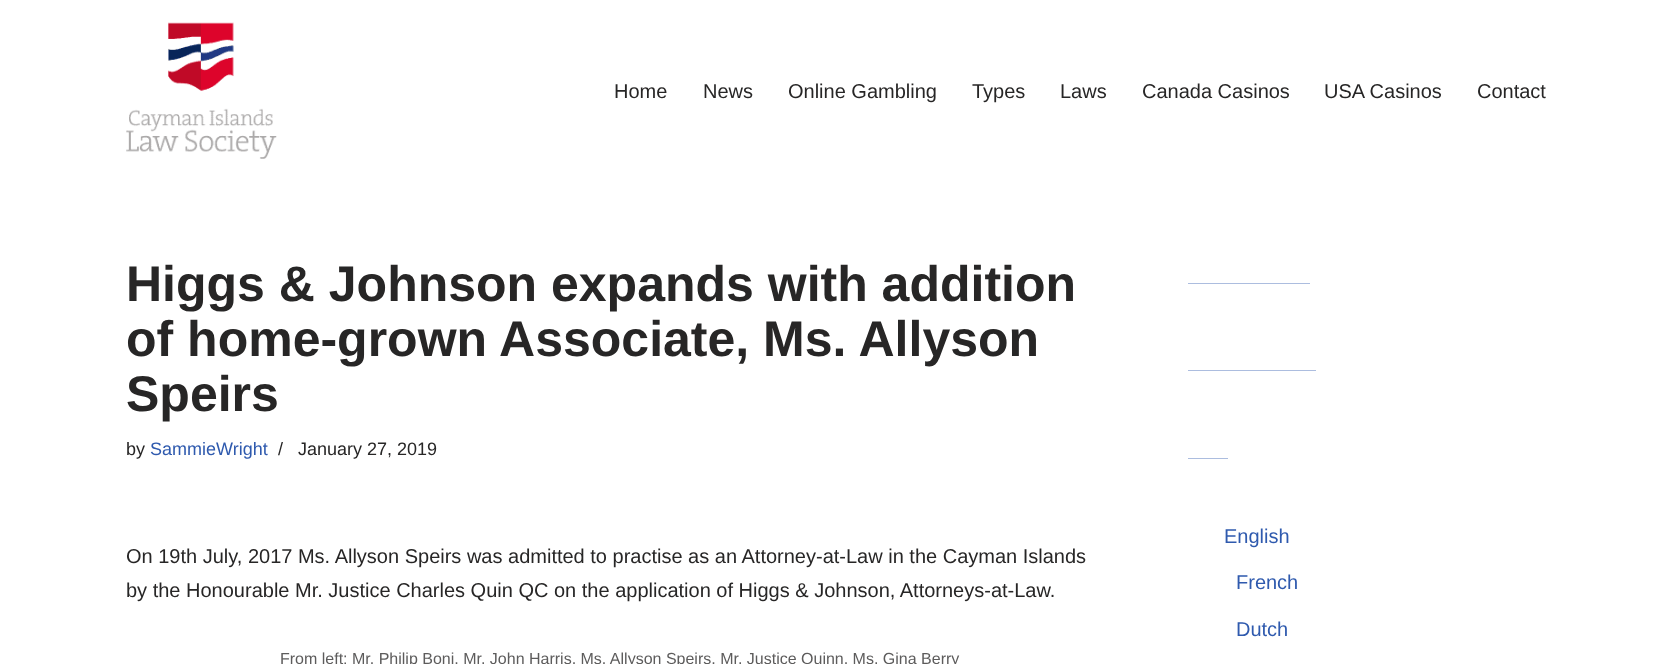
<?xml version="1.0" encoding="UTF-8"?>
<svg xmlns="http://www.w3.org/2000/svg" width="1677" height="664">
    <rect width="100%" height="100%" fill="#FFFFFF"/>
    <image x="126" y="22" width="151" height="137" href="img_01.png"/>
    <text x="614" y="98" font-family="Liberation Sans" font-size="20" fill="#272626">Home</text>
    <text x="703" y="98" font-family="Liberation Sans" font-size="20" fill="#272626">News</text>
    <text x="788" y="98" font-family="Liberation Sans" font-size="20" fill="#272626">Online Gambling</text>
    <text x="972" y="98" font-family="Liberation Sans" font-size="20" fill="#272626">Types</text>
    <text x="1060" y="98" font-family="Liberation Sans" font-size="20" fill="#272626">Laws</text>
    <text x="1142" y="98" font-family="Liberation Sans" font-size="20" fill="#272626">Canada Casinos</text>
    <text x="1324" y="98" font-family="Liberation Sans" font-size="20" fill="#272626">USA Casinos</text>
    <text x="1477" y="98" font-family="Liberation Sans" font-size="20" fill="#272626">Contact</text>
    <text font-family="Liberation Sans" font-size="50" font-weight="700" fill="#272626">
        <tspan x="126" y="301">Higgs &amp; Johnson expands with addition</tspan>
        <tspan x="126" y="356">of home-grown Associate, Ms. Allyson</tspan>
        <tspan x="126" y="411">Speirs</tspan>
    </text>
    <text x="126" y="455" font-family="Liberation Sans" font-size="18" fill="#272626">by</text>
    <text x="150" y="455" font-family="Liberation Sans" font-size="18" fill="#2F5AAE">SammieWright</text>
    <text x="278" y="455" font-family="Liberation Sans" font-size="18" fill="#272626">/</text>
    <text x="298" y="455" font-family="Liberation Sans" font-size="18" fill="#272626">January 27, 2019</text>
    <text font-family="Liberation Sans" font-size="20" fill="#272626">
        <tspan x="126" y="563">On 19th July, 2017 Ms. Allyson Speirs was admitted to practise as an Attorney-at-Law in the Cayman Islands</tspan>
        <tspan x="126" y="597">by the Honourable Mr. Justice Charles Quin QC on the application of Higgs &amp; Johnson, Attorneys-at-Law.</tspan>
    </text>
    <text x="280" y="664" font-family="Liberation Sans" font-size="16" fill="#5D5C5C">From left: Mr. Philip Boni, Mr. John Harris, Ms. Allyson Speirs, Mr. Justice Quinn, Ms. Gina Berry</text>
    <rect x="1188" y="283" width="122" height="1" fill="#ACBDDF"/>
    <rect x="1188" y="370" width="128" height="1" fill="#ACBDDF"/>
    <rect x="1188" y="458" width="40" height="1" fill="#ACBDDF"/>
    <text x="1224" y="543" font-family="Liberation Sans" font-size="20" fill="#2F5AAE">English</text>
    <text x="1236" y="589" font-family="Liberation Sans" font-size="20" fill="#2F5AAE">French</text>
    <text x="1236" y="636" font-family="Liberation Sans" font-size="20" fill="#2F5AAE">Dutch</text>
</svg>
